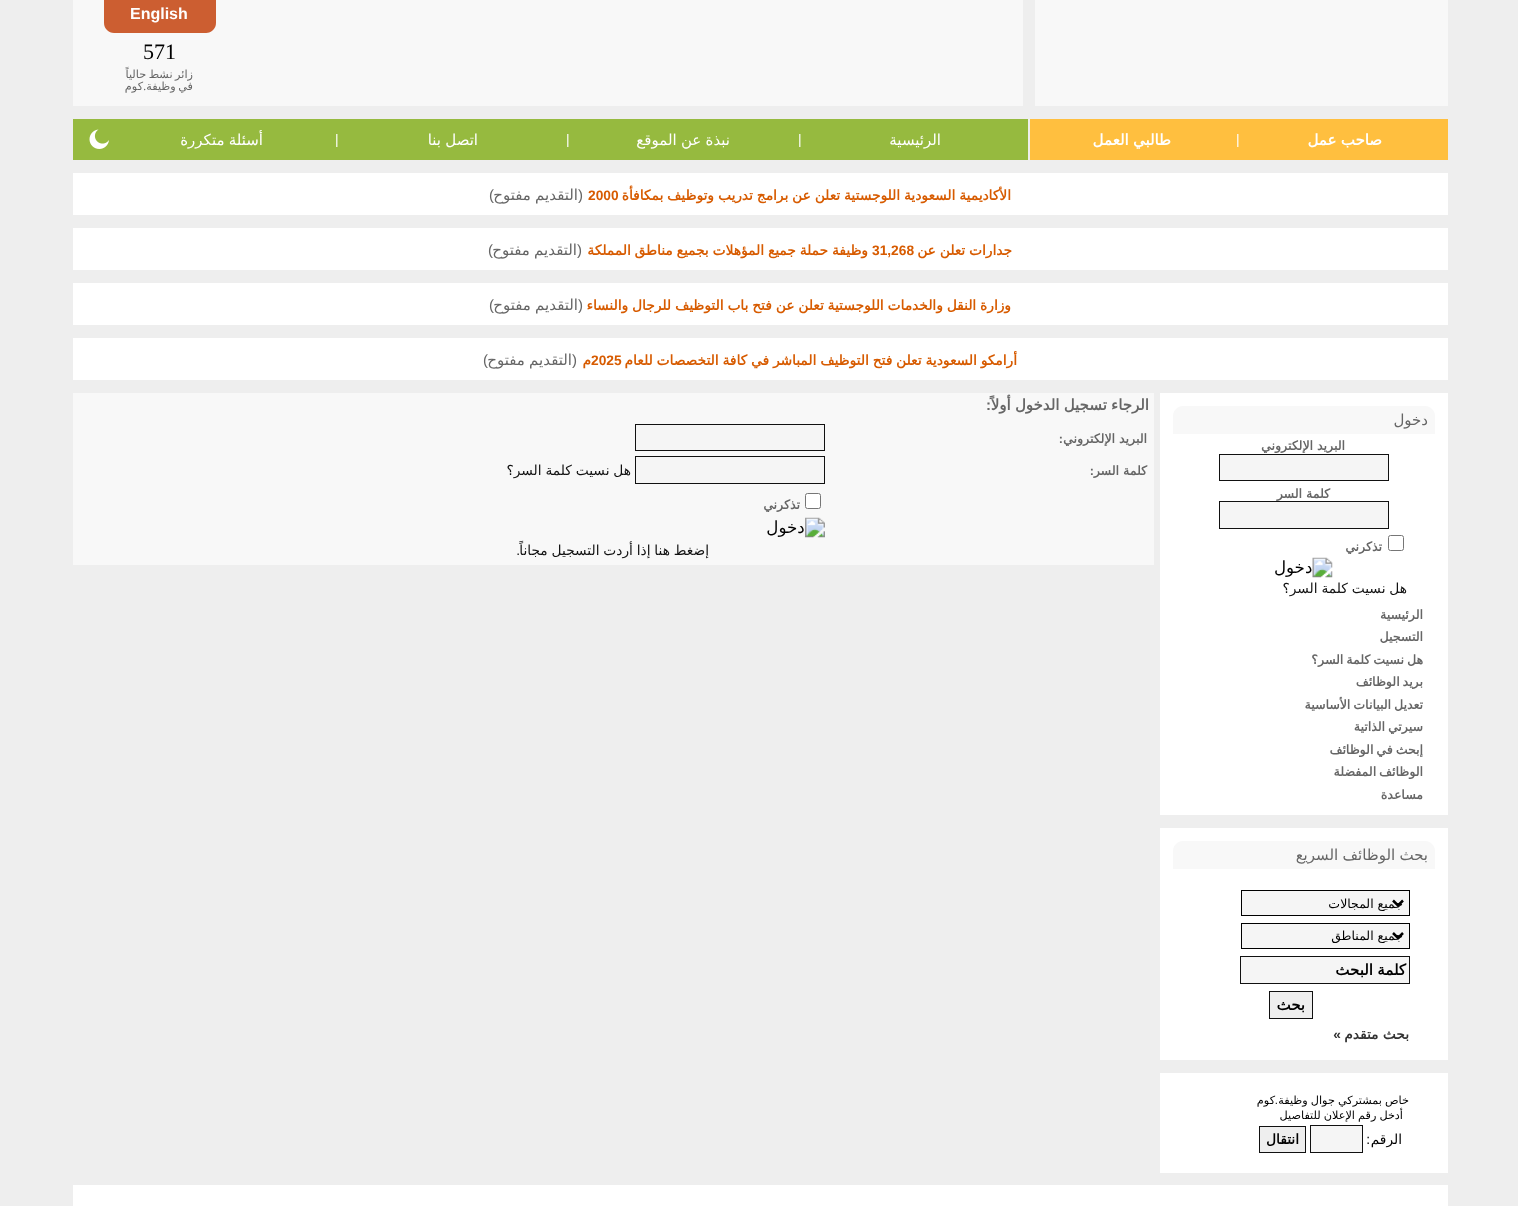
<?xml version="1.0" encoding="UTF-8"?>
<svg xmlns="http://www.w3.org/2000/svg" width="1518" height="1206">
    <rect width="100%" height="100%" fill="#EEEEEE"/>
    <rect x="1035" y="0" width="413" height="106" fill="#F8F8F8"/>
    <rect x="73" y="0" width="950" height="106" fill="#F8F8F8"/>
    <path d="M 104 0 H 216 V 23 C 216 28.5 211.5 33 206 33 H 114 C 108.5 33 104 28.5 104 23 Z" fill="#CC5E31"/>
    <text x="130" y="19" font-family="Liberation Sans" font-size="16" font-weight="700" fill="#FFFFFF">English</text>
    <text x="143" y="59" font-family="Liberation Serif" font-size="22" fill="#000000">571</text>
    <text font-family="DejaVu Sans" font-size="11.25" direction="rtl" fill="#666666">
        <tspan x="193" y="78" word-spacing="-1">زائر نشط حالياً</tspan>
        <tspan x="193" y="90" word-spacing="-1">في وظيفة</tspan>
    </text>
    <text x="146" y="90" font-family="Liberation Serif" font-size="11.25" direction="rtl" fill="#666666">.</text>
    <text x="143" y="90" font-family="DejaVu Sans" font-size="11.25" direction="rtl" fill="#666666">كوم</text>
    <rect x="1030" y="119" width="418" height="41" fill="#FFBF3F"/>
    <text x="1382" y="145" word-spacing="-0.5" font-family="DejaVu Sans" font-size="15" font-weight="700" direction="rtl" fill="#FFFFFF">صاحب عمل</text>
    <text x="1236" y="144" font-family="Liberation Sans" font-size="13.75" fill="#FFFFFF">|</text>
    <text x="1171" y="145" word-spacing="-0.5" font-family="DejaVu Sans" font-size="15" font-weight="700" direction="rtl" fill="#FFFFFF">طالبي العمل</text>
    <rect x="73" y="119" width="955" height="41" fill="#96BA3F"/>
    <text x="941" y="145" font-family="DejaVu Sans" font-size="15" direction="rtl" fill="#FFFFFF">الرئيسية</text>
    <text x="798" y="144" font-family="Liberation Sans" font-size="13.75" fill="#FFFFFF">|</text>
    <text x="730" y="145" word-spacing="-0.5" font-family="DejaVu Sans" font-size="15" direction="rtl" fill="#FFFFFF">نبذة عن الموقع</text>
    <text x="566" y="144" font-family="Liberation Sans" font-size="13.75" fill="#FFFFFF">|</text>
    <text x="478" y="145" word-spacing="-0.5" font-family="DejaVu Sans" font-size="15" direction="rtl" fill="#FFFFFF">اتصل بنا</text>
    <text x="335" y="144" font-family="Liberation Sans" font-size="13.75" fill="#FFFFFF">|</text>
    <text x="263" y="145" word-spacing="-0.5" font-family="DejaVu Sans" font-size="15" direction="rtl" fill="#FFFFFF">أسئلة متكررة</text>
    <image x="89" y="129" width="20" height="20" href="img_01.png"/>
    <rect x="73" y="173" width="1375" height="42" fill="#FFFFFF"/>
    <text x="1011" y="200" word-spacing="-0.5" font-family="DejaVu Sans" font-size="13.75" font-weight="700" direction="rtl" fill="#D75B00">الأكاديمية السعودية اللوجستية تعلن عن برامج تدريب وتوظيف بمكافأة</text>
    <text x="588" y="200" font-family="Liberation Sans" font-size="13.75" font-weight="700" fill="#D75B00">2000</text>
    <text x="583" y="200" font-family="Liberation Sans" font-size="15" direction="rtl" fill="#666666">(</text>
    <text x="578" y="200" word-spacing="-0.5" font-family="DejaVu Sans" font-size="15" direction="rtl" fill="#666666">التقديم مفتوح</text>
    <text x="494" y="200" font-family="Liberation Sans" font-size="15" direction="rtl" fill="#666666">)</text>
    <rect x="73" y="228" width="1375" height="42" fill="#FFFFFF"/>
    <text x="1012" y="255" word-spacing="-0.5" font-family="DejaVu Sans" font-size="13.75" font-weight="700" direction="rtl" fill="#D75B00">جدارات تعلن عن</text>
    <text x="872" y="255" font-family="Liberation Sans" font-size="13.75" font-weight="700" fill="#D75B00">31,268</text>
    <text x="868" y="255" word-spacing="-0.5" font-family="DejaVu Sans" font-size="13.75" font-weight="700" direction="rtl" fill="#D75B00">وظيفة حملة جميع المؤهلات بجميع مناطق المملكة</text>
    <text x="582" y="255" font-family="Liberation Sans" font-size="15" direction="rtl" fill="#666666">(</text>
    <text x="577" y="255" word-spacing="-0.5" font-family="DejaVu Sans" font-size="15" direction="rtl" fill="#666666">التقديم مفتوح</text>
    <text x="493" y="255" font-family="Liberation Sans" font-size="15" direction="rtl" fill="#666666">)</text>
    <rect x="73" y="283" width="1375" height="42" fill="#FFFFFF"/>
    <text x="1011" y="310" word-spacing="-0.5" font-family="DejaVu Sans" font-size="13.75" font-weight="700" direction="rtl" fill="#D75B00">وزارة النقل والخدمات اللوجستية تعلن عن فتح باب التوظيف للرجال والنساء</text>
    <text x="583" y="310" font-family="Liberation Sans" font-size="15" direction="rtl" fill="#666666">(</text>
    <text x="578" y="310" word-spacing="-0.5" font-family="DejaVu Sans" font-size="15" direction="rtl" fill="#666666">التقديم مفتوح</text>
    <text x="494" y="310" font-family="Liberation Sans" font-size="15" direction="rtl" fill="#666666">)</text>
    <rect x="73" y="338" width="1375" height="42" fill="#FFFFFF"/>
    <text x="1017" y="365" word-spacing="-0.5" font-family="DejaVu Sans" font-size="13.75" font-weight="700" direction="rtl" fill="#D75B00">أرامكو السعودية تعلن فتح التوظيف المباشر في كافة التخصصات للعام</text>
    <text x="591" y="365" font-family="Liberation Sans" font-size="13.75" font-weight="700" fill="#D75B00">2025</text>
    <text x="591" y="365" font-family="DejaVu Sans" font-size="13.75" font-weight="700" direction="rtl" fill="#D75B00">م</text>
    <text x="577" y="365" font-family="Liberation Sans" font-size="15" direction="rtl" fill="#666666">(</text>
    <text x="572" y="365" word-spacing="-0.5" font-family="DejaVu Sans" font-size="15" direction="rtl" fill="#666666">التقديم مفتوح</text>
    <text x="488" y="365" font-family="Liberation Sans" font-size="15" direction="rtl" fill="#666666">)</text>
    <rect x="1160" y="393" width="288" height="422" fill="#FFFFFF"/>
    <path d="M 1183 406 H 1425 C 1430.5 406 1435 410.5 1435 416 V 434 H 1173 V 416 C 1173 410.5 1177.5 406 1183 406 Z" fill="#F8F8F8"/>
    <text x="1428" y="425" font-family="DejaVu Sans" font-size="15" direction="rtl" fill="#666666">دخول</text>
    <text x="1345" y="450" font-family="DejaVu Sans" font-size="12.5" font-weight="700" direction="rtl" fill="#666666">البريد الإلكتروني</text>
    <rect x="1219.5" y="454.5" width="169" height="26" fill="#F5F5F5" stroke="#111111"/>
    <text x="1330" y="498" font-family="DejaVu Sans" font-size="12.5" font-weight="700" direction="rtl" fill="#666666">كلمة السر</text>
    <rect x="1219.5" y="501.5" width="169" height="27" fill="#F5F5F5" stroke="#111111"/>
    <rect x="1388.5" y="535.5" width="15" height="15" rx="2" fill="none" stroke="#767676"/>
    <text x="1382" y="551" font-family="DejaVu Sans" font-size="12.5" font-weight="700" direction="rtl" fill="#666666">تذكرني</text>
    <image x="1275" y="557" width="58" height="21" href="img_02.png"/>
    <text x="1407" y="593" word-spacing="-0.5" font-family="DejaVu Sans" font-size="13.75" direction="rtl" fill="#111111">هل نسيت كلمة السر؟</text>
    <text font-family="DejaVu Sans" font-size="12.5" font-weight="700" direction="rtl" fill="#666666">
        <tspan x="1423" y="619">الرئيسية</tspan>
        <tspan x="1423" y="641">التسجيل</tspan>
        <tspan x="1423" y="664" word-spacing="-1">هل نسيت كلمة السر؟</tspan>
        <tspan x="1423" y="686" word-spacing="-1">بريد الوظائف</tspan>
        <tspan x="1423" y="709" word-spacing="-1">تعديل البيانات الأساسية</tspan>
        <tspan x="1423" y="731" word-spacing="-1">سيرتي الذاتية</tspan>
        <tspan x="1423" y="754" word-spacing="-1">إبحث في الوظائف</tspan>
        <tspan x="1423" y="776" word-spacing="-1">الوظائف المفضلة</tspan>
        <tspan x="1423" y="799">مساعدة</tspan>
    </text>
    <rect x="1160" y="828" width="288" height="232" fill="#FFFFFF"/>
    <path d="M 1183 841 H 1425 C 1430.5 841 1435 845.5 1435 851 V 869 H 1173 V 851 C 1173 845.5 1177.5 841 1183 841 Z" fill="#F8F8F8"/>
    <text x="1428" y="860" word-spacing="-0.5" font-family="DejaVu Sans" font-size="15" direction="rtl" fill="#666666">بحث الوظائف السريع</text>
    <rect x="1241.5" y="890.5" width="168" height="25" fill="#F5F5F5" stroke="#000000"/>
    <path d="M 1393 900.5 L 1398 905.5 L 1403 900.5" fill="none" stroke="#000000" stroke-width="2.5"/>
    <text x="1403" y="908" font-family="DejaVu Sans" font-size="12.5" direction="rtl" fill="#000000">جميع المجالات</text>
    <rect x="1241.5" y="923.5" width="168" height="25" fill="#F5F5F5" stroke="#000000"/>
    <path d="M 1393 933 L 1398 938 L 1403 933" fill="none" stroke="#000000" stroke-width="2.5"/>
    <text x="1403" y="940" font-family="DejaVu Sans" font-size="12.5" direction="rtl" fill="#000000">جميع المناطق</text>
    <rect x="1240.5" y="956.5" width="169" height="27" fill="#F5F5F5" stroke="#111111"/>
    <text x="1406" y="975" word-spacing="-0.5" font-family="DejaVu Sans" font-size="15" font-weight="700" direction="rtl" fill="#000000">كلمة البحث</text>
    <rect x="1269.5" y="991.5" width="43" height="27" fill="#EEEEEE" stroke="#111111"/>
    <text x="1305" y="1010" font-family="DejaVu Sans" font-size="15" font-weight="700" direction="rtl" fill="#000000">بحث</text>
    <text x="1409" y="1039" font-family="DejaVu Sans" font-size="13.75" font-weight="700" direction="rtl" fill="#333333">بحث متقدم</text>
    <text x="1341" y="1039" font-family="Liberation Sans" font-size="13.75" font-weight="700" direction="rtl" fill="#333333">»</text>
    <rect x="1160" y="1073" width="288" height="100" fill="#FFFFFF"/>
    <text x="1409" y="1104" word-spacing="-0.5" font-family="DejaVu Sans" font-size="11.25" direction="rtl" fill="#000000">خاص بمشتركي جوال وظيفة</text>
    <text x="1278" y="1104" font-family="Liberation Sans" font-size="11.25" direction="rtl" fill="#000000">.</text>
    <text x="1275" y="1104" font-family="DejaVu Sans" font-size="11.25" direction="rtl" fill="#000000">كوم</text>
    <text x="1403" y="1119" word-spacing="-0.5" font-family="DejaVu Sans" font-size="11.25" direction="rtl" fill="#000000">أدخل رقم الإعلان للتفاصيل</text>
    <text x="1402" y="1144" font-family="DejaVu Sans" font-size="13.75" direction="rtl" fill="#000000">الرقم</text>
    <text x="1370" y="1144" font-family="Liberation Sans" font-size="13.75" direction="rtl" fill="#000000">:</text>
    <rect x="1310.5" y="1125.5" width="52" height="27" fill="#F5F5F5" stroke="#111111"/>
    <rect x="1259.5" y="1126.5" width="46" height="26" fill="#EEEEEE" stroke="#111111"/>
    <text x="1299" y="1144" font-family="DejaVu Sans" font-size="13.75" font-weight="700" direction="rtl" fill="#000000">انتقال</text>
    <rect x="73" y="393" width="1081" height="172" fill="#F8F8F8"/>
    <text x="1149" y="410" word-spacing="-0.5" font-family="DejaVu Sans" font-size="15" font-weight="700" direction="rtl" fill="#666666">الرجاء تسجيل الدخول أولاً</text>
    <text x="991" y="410" font-family="Liberation Sans" font-size="15" font-weight="700" direction="rtl" fill="#666666">:</text>
    <text x="1147" y="443" font-family="DejaVu Sans" font-size="12.5" font-weight="700" direction="rtl" fill="#666666">البريد الإلكتروني</text>
    <text x="1063" y="443" font-family="Liberation Sans" font-size="12.5" font-weight="700" direction="rtl" fill="#666666">:</text>
    <rect x="635.5" y="424.5" width="189" height="26" fill="#F5F5F5" stroke="#111111"/>
    <text x="1147" y="475" font-family="DejaVu Sans" font-size="12.5" font-weight="700" direction="rtl" fill="#666666">كلمة السر</text>
    <text x="1094" y="475" font-family="Liberation Sans" font-size="12.5" font-weight="700" direction="rtl" fill="#666666">:</text>
    <rect x="635.5" y="456.5" width="189" height="27" fill="#F5F5F5" stroke="#111111"/>
    <text x="631" y="475" word-spacing="-0.5" font-family="DejaVu Sans" font-size="13.75" direction="rtl" fill="#111111">هل نسيت كلمة السر؟</text>
    <rect x="805.5" y="493.5" width="15" height="15" rx="2" fill="#FFFFFF" stroke="#767676"/>
    <text x="800" y="509" font-family="DejaVu Sans" font-size="12.5" font-weight="700" direction="rtl" fill="#666666">تذكرني</text>
    <image x="767" y="517" width="58" height="21" href="img_03.png"/>
    <text x="709" y="555" word-spacing="-0.5" font-family="DejaVu Sans" font-size="13.75" direction="rtl" fill="#111111">إضغط هنا إذا أردت التسجيل مجاناً</text>
    <text x="520" y="555" font-family="Liberation Sans" font-size="13.75" direction="rtl" fill="#111111">.</text>
    <rect x="73" y="1185" width="1375" height="21" fill="#FFFFFF"/>
</svg>
